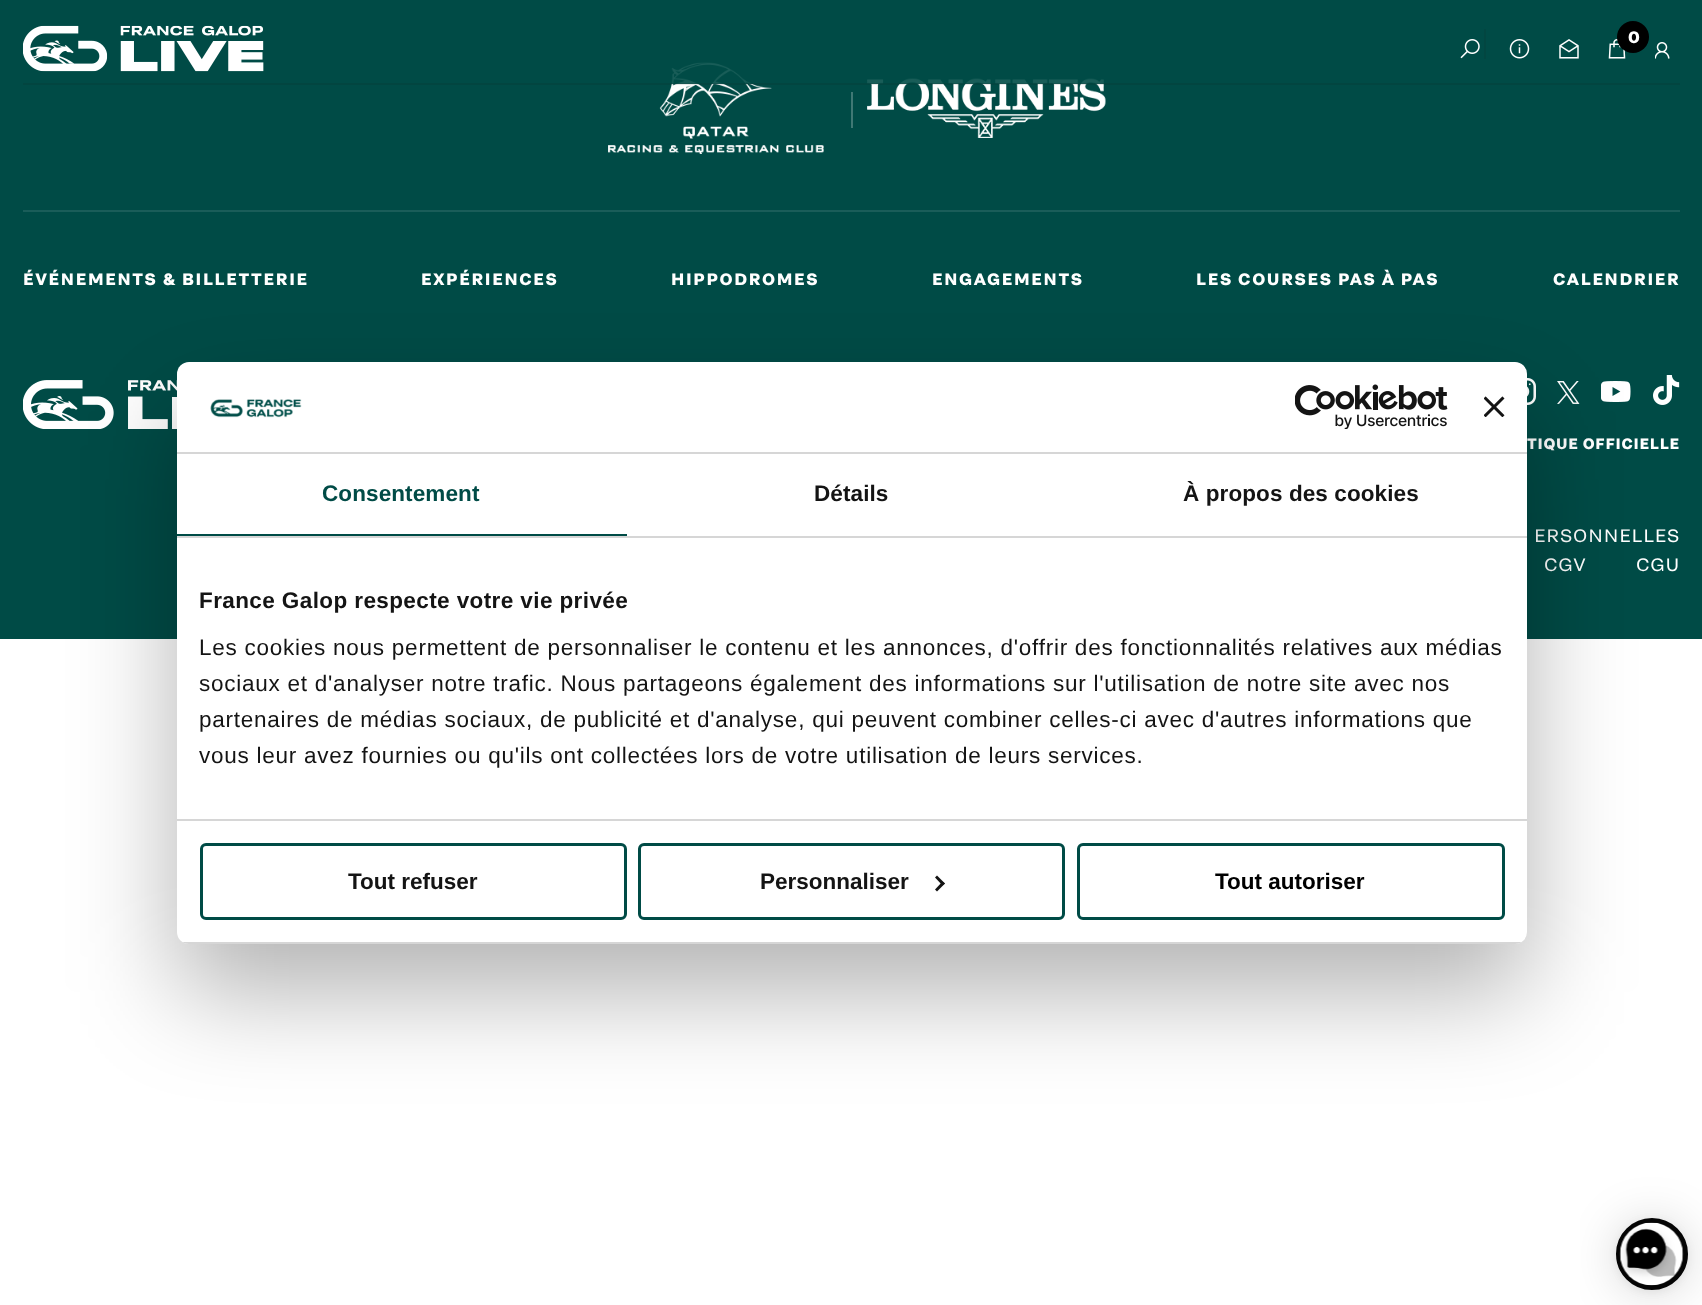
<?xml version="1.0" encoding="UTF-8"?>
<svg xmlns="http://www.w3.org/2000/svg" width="1702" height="1305">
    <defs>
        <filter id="blur1" x="-50%" y="-200%" width="200%" height="500%"><feGaussianBlur stdDeviation="51"/></filter>
        <clipPath id="clip1"><rect x="177" y="362" width="1350" height="582" rx="12"/></clipPath>
        <filter id="blur2" x="-50%" y="-200%" width="200%" height="500%"><feGaussianBlur stdDeviation="24"/></filter>
        <filter id="blur3" x="-50%" y="-200%" width="200%" height="500%"><feGaussianBlur stdDeviation="4.5"/></filter>
    </defs>
    <rect width="100%" height="100%" fill="#FFFFFF"/>
    <rect x="0" y="0" width="1702" height="639" fill="#004B46"/>
    <image x="608" y="62" width="216" height="92" href="img_07.png"/>
    <image x="867" y="78" width="239" height="60" href="img_08.png"/>
    <rect x="671" y="62" width="433" height="22" fill="#004B46" fill-opacity="0.9"/>
    <rect x="23" y="83" width="1657" height="2" fill="#151515" fill-opacity="0.1"/>
    <image x="23" y="25" width="241" height="47" href="img_01.png"/>
    <image x="1460" y="39" width="20" height="20" href="img_02.png"/>
    <rect x="1484" y="29" width="2" height="30" fill="#024641"/>
    <image x="1608" y="39" width="18" height="20" href="img_03.png"/>
    <circle cx="1633" cy="37" r="16" fill="#000000"/>
    <text x="1628" y="43" font-family="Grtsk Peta" font-size="16.5" font-weight="700" fill="#FFFFFF">0</text>
    <image x="1509" y="39" width="21" height="20" href="img_04.png"/>
    <image x="1559" y="39" width="20" height="20" href="img_05.png"/>
    <image x="1655" y="42" width="15" height="17" href="img_06.png"/>
    <rect x="23" y="210" width="1657" height="2" fill="#1A5D59"/>
    <rect x="851" y="92" width="2" height="36" fill="#407874"/>
    <text x="23" y="285" font-family="Grtsk Peta" font-size="16.5" font-weight="700" letter-spacing="1.65" fill="#FFFFFF">ÉVÉNEMENTS &amp; BILLETTERIE</text>
    <text x="421" y="285" font-family="Grtsk Peta" font-size="16.5" font-weight="700" letter-spacing="1.65" fill="#FFFFFF">EXPÉRIENCES</text>
    <text x="671" y="285" font-family="Grtsk Peta" font-size="16.5" font-weight="700" letter-spacing="1.65" fill="#FFFFFF">HIPPODROMES</text>
    <text x="932" y="285" font-family="Grtsk Peta" font-size="16.5" font-weight="700" letter-spacing="1.65" fill="#FFFFFF">ENGAGEMENTS</text>
    <text x="1196" y="285" font-family="Grtsk Peta" font-size="16.5" font-weight="700" letter-spacing="1.65" fill="#FFFFFF">LES COURSES PAS À PAS</text>
    <text x="1553" y="285" font-family="Grtsk Peta" font-size="16.5" font-weight="700" letter-spacing="1.65" fill="#FFFFFF">CALENDRIER</text>
    <image x="23" y="380" width="154" height="49" href="img_09.png"/>
    <image x="1527" y="378" width="9" height="27" href="img_10.png"/>
    <image x="1557" y="381" width="23" height="23" href="img_11.png"/>
    <image x="1601" y="381" width="30" height="21" href="img_12.png"/>
    <image x="1653" y="375" width="27" height="30" href="img_13.png"/>
    <text x="1527" y="449" font-family="Grtsk Peta" font-size="15" font-weight="700" letter-spacing="0.75" fill="#FFFFFF">TIQUE OFFICIELLE</text>
    <text x="1534" y="542" font-family="Grtsk Peta" font-size="18" letter-spacing="0.9" fill="#FFFFFF">ERSONNELLES</text>
    <text x="1544" y="571" font-family="Grtsk Peta" font-size="18" letter-spacing="0.9" fill="#FFFFFF">CGV</text>
    <text x="1636" y="571" font-family="Grtsk Peta" font-size="18" letter-spacing="0.9" fill="#FFFFFF">CGU</text>
    <rect x="177" y="410" width="1350" height="582" rx="12" fill="#000000" fill-opacity="0.3" filter="url(#blur1)"/>
    <rect x="177" y="362" width="1350" height="582" rx="12" fill="#FFFFFF"/>
    <rect x="177" y="452" width="1350" height="2" fill="#D6D6D6"/>
    <image x="210" y="399" width="92" height="19" href="img_14.png"/>
    <image x="1295" y="384" width="153" height="45" href="img_15.png"/>
    <image x="1484" y="396" width="21" height="21" href="img_16.png"/>
    <rect x="177" y="536" width="1350" height="2" fill="#D6D6D6"/>
    <rect x="177" y="534" width="450" height="2" fill="#004B46"/>
    <text x="322" y="501" font-family="Liberation Sans" font-size="22.5" font-weight="700" letter-spacing="0.1" fill="#004B46">Consentement</text>
    <text x="814" y="501" font-family="Liberation Sans" font-size="22.5" font-weight="700" letter-spacing="0.1" fill="#141414">Détails</text>
    <text x="1183" y="501" font-family="Liberation Sans" font-size="22.5" font-weight="700" letter-spacing="0.1" fill="#141414">À propos des cookies</text>
    <rect x="177" y="819" width="1350" height="2" fill="#D6D6D6"/>
    <text x="199" y="608" font-family="Liberation Sans" font-size="22.5" font-weight="700" letter-spacing="0.4" fill="#141414">France Galop respecte votre vie privée</text>
    <text font-family="Liberation Sans" font-size="22.5" letter-spacing="0.75" fill="#141414">
        <tspan x="199" y="655">Les cookies nous permettent de personnaliser le contenu et les annonces, d'offrir des fonctionnalités relatives aux médias</tspan>
        <tspan x="199" y="691">sociaux et d'analyser notre trafic. Nous partageons également des informations sur l'utilisation de notre site avec nos</tspan>
        <tspan x="199" y="727">partenaires de médias sociaux, de publicité et d'analyse, qui peuvent combiner celles-ci avec d'autres informations que</tspan>
        <tspan x="199" y="763">vous leur avez fournies ou qu'ils ont collectées lors de votre utilisation de leurs services.</tspan>
    </text>
    <g clip-path="url(#clip1)">
        <rect x="177" y="942" width="1350" height="2" fill="#D6D6D6"/>
    </g>
    <rect x="201.5" y="844.5" width="424" height="74" rx="4.5" fill="none" stroke="#004B46" stroke-width="3"/>
    <text x="348" y="889" font-family="Liberation Sans" font-size="22.5" font-weight="700" fill="#141414">Tout refuser</text>
    <rect x="639.5" y="844.5" width="424" height="74" rx="4.5" fill="none" stroke="#004B46" stroke-width="3"/>
    <text x="760" y="889" font-family="Liberation Sans" font-size="22.5" font-weight="700" fill="#141414">Personnaliser</text>
    <path d="M 937 875.5 L 945 883.5 L 942.5 885.5 L 935 877.5 Z" fill="#141414"/>
    <path d="M 942.5 881.5 L 945 883.5 L 937 891.5 L 935 889.5 Z" fill="#141414"/>
    <rect x="1078.5" y="844.5" width="425" height="74" rx="4.5" fill="none" stroke="#004B46" stroke-width="3"/>
    <text x="1215" y="889" font-family="Liberation Sans" font-size="22.5" font-weight="700" fill="#000000">Tout autoriser</text>
    <rect x="1616" y="1221" width="72" height="72" rx="36" fill="#000000" fill-opacity="0.16" filter="url(#blur2)"/>
    <rect x="1616" y="1220" width="72" height="72" rx="36" fill="#000000" fill-opacity="0.06" filter="url(#blur3)"/>
    <circle cx="1652" cy="1254" r="33.5" fill="#050505" stroke="#050505" stroke-width="5"/>
    <image x="1619" y="1222" width="65" height="64" href="img_17.png"/>
</svg>
